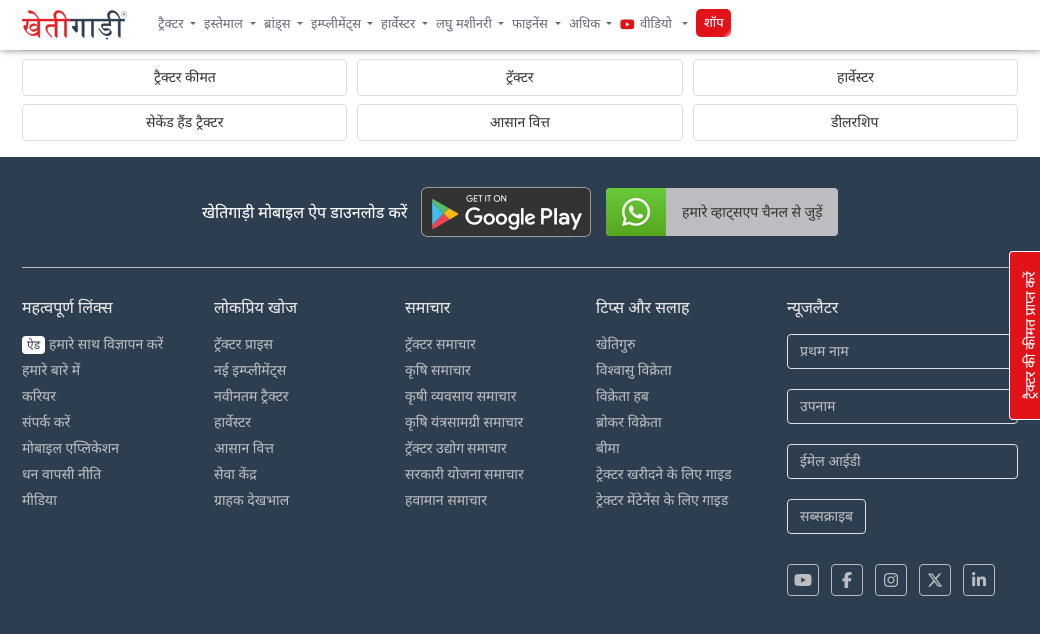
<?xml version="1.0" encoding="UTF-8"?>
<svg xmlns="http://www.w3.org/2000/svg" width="1040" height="634">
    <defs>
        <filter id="blur1" x="-50%" y="-200%" width="200%" height="500%"><feGaussianBlur stdDeviation="3"/></filter>
        <linearGradient id="g1" gradientUnits="userSpaceOnUse" x1="715" y1="-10" x2="782" y2="56"><stop offset="0" stop-color="#E21219"/><stop offset="0.4" stop-color="#E21219"/><stop offset="0.5" stop-color="#FFFFFF"/><stop offset="0.6" stop-color="#E21219"/><stop offset="1" stop-color="#E21219"/></linearGradient>
        <linearGradient id="g2" gradientUnits="userSpaceOnUse" x1="636" y1="188" x2="636" y2="236"><stop offset="0" stop-color="#69CA3B"/><stop offset="1" stop-color="#56A61E"/></linearGradient>
        <clipPath id="clip1"><rect x="800" y="451" width="205" height="19"/></clipPath>
    </defs>
    <rect width="100%" height="100%" fill="#FFFFFF"/>
    <rect x="22" y="50" width="996" height="1" fill="#DEE2E6"/>
    <rect x="22.5" y="59.5" width="324" height="36" rx="3.5" fill="none" stroke="#DDDDDD"/>
    <rect x="357.5" y="59.5" width="325" height="36" rx="3.5" fill="none" stroke="#DDDDDD"/>
    <rect x="693.5" y="59.5" width="324" height="36" rx="3.5" fill="none" stroke="#DDDDDD"/>
    <rect x="1" y="1" width="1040" height="50" fill="#000000" fill-opacity="0.4" filter="url(#blur1)"/>
    <rect x="0" y="0" width="1040" height="50" fill="#FFFFFF"/>
    <image x="22" y="10" width="105" height="30" href="img_01.png"/>
    <text x="158" y="28" font-family="Noto Sans" font-size="13" fill="#6A6A7C">ट्रैक्टर</text>
    <path d="M 190 22 H 196 L 193 25 Z" fill="#6A6A7C"/>
    <text x="204" y="28" font-family="Noto Sans" font-size="13" fill="#6A6A7C">इस्तेमाल</text>
    <path d="M 250 22 H 256 L 253 25 Z" fill="#6A6A7C"/>
    <text x="264" y="28" font-family="Noto Sans" font-size="13" fill="#6A6A7C">ब्रांड्स</text>
    <path d="M 297 22 H 303 L 300 25 Z" fill="#6A6A7C"/>
    <text x="311" y="28" font-family="Noto Sans" font-size="13" fill="#6A6A7C">इम्प्लीमेंट्स</text>
    <path d="M 367 22 H 373 L 370 25 Z" fill="#6A6A7C"/>
    <text x="381" y="28" font-family="Noto Sans" font-size="13" fill="#6A6A7C">हार्वेस्टर</text>
    <path d="M 422 22 H 428 L 425 25 Z" fill="#6A6A7C"/>
    <text x="436" y="28" font-family="Noto Sans" font-size="13" fill="#6A6A7C">लघु मशीनरी</text>
    <path d="M 498 22 H 504 L 501 25 Z" fill="#6A6A7C"/>
    <text x="512" y="28" font-family="Noto Sans" font-size="13" fill="#6A6A7C">फाइनेंस</text>
    <path d="M 555 22 H 561 L 558 25 Z" fill="#6A6A7C"/>
    <text x="569" y="28" font-family="Noto Sans" font-size="13" fill="#6A6A7C">अधिक</text>
    <path d="M 606 22 H 612 L 609 25 Z" fill="#6A6A7C"/>
    <image x="620" y="19" width="15" height="11" href="img_02.png"/>
    <text x="640" y="28" font-family="Noto Sans" font-size="13" fill="#6A6A7C">वीडियो</text>
    <path d="M 682 22 H 688 L 685 25 Z" fill="#6A6A7C"/>
    <rect x="696" y="9" width="35" height="28" rx="5" fill="url(#g1)"/>
    <text x="704" y="27" font-family="Noto Sans" font-size="13" fill="#FFFFFF">शॉप</text>
    <text x="154" y="82" font-family="Noto Sans" font-size="14" fill="#333333">ट्रैक्टर कीमत</text>
    <text x="506" y="82" font-family="Noto Sans" font-size="14" fill="#333333">ट्रॅक्टर</text>
    <text x="837" y="82" font-family="Noto Sans" font-size="14" fill="#333333">हार्वेस्टर</text>
    <rect x="22.5" y="104.5" width="324" height="36" rx="3.5" fill="none" stroke="#DDDDDD"/>
    <text x="146" y="127" font-family="Noto Sans" font-size="14" fill="#333333">सेकेंड हैंड ट्रैक्टर</text>
    <rect x="357.5" y="104.5" width="325" height="36" rx="3.5" fill="none" stroke="#DDDDDD"/>
    <text x="490" y="127" font-family="Noto Sans" font-size="14" fill="#333333">आसान वित्त</text>
    <rect x="693.5" y="104.5" width="324" height="36" rx="3.5" fill="none" stroke="#DDDDDD"/>
    <text x="831" y="127" font-family="Noto Sans" font-size="14" fill="#333333">डीलरशिप</text>
    <rect x="0" y="157" width="1040" height="477" fill="#2C3E50"/>
    <rect x="22" y="267" width="987" height="1" fill="#BCBDC0"/>
    <text x="202" y="218" font-family="Noto Sans" font-size="16" fill="#FFFFFF">खेतिगाड़ी मोबाइल ऐप डाउनलोड करें</text>
    <image x="421" y="187" width="170" height="50" href="img_03.png"/>
    <rect x="606" y="188" width="232" height="48" rx="4" fill="#BCBDC0"/>
    <path d="M 610 188 H 666 V 236 H 610 C 608 236 606 234 606 232 V 192 C 606 190 608 188 610 188 Z" fill="url(#g2)"/>
    <image x="622" y="198" width="28" height="28" href="img_04.png"/>
    <text x="682" y="217" font-family="Noto Sans" font-size="14" fill="#333333">हमारे व्हाट्सएप चैनल से जुड़ें</text>
    <text x="22" y="313" font-family="Noto Sans" font-size="16" fill="#E6E6E6">महत्वपूर्ण लिंक्स</text>
    <rect x="22" y="336" width="23" height="18" rx="4" fill="#FFFFFF"/>
    <text x="27" y="349" font-family="Noto Sans" font-size="12" fill="#2C3E50">ऐड</text>
    <text x="49" y="349" font-family="Noto Sans" font-size="14" fill="#BCBDC0">हमारे साथ विज्ञापन करें</text>
    <text font-family="Noto Sans" font-size="14" fill="#BCBDC0">
        <tspan x="22" y="375">हमारे बारे में</tspan>
        <tspan x="22" y="401">करियर</tspan>
        <tspan x="22" y="427">संपर्क करें</tspan>
        <tspan x="22" y="453">मोबाइल एप्लिकेशन</tspan>
        <tspan x="22" y="479">धन वापसी नीति</tspan>
        <tspan x="22" y="505">मीडिया</tspan>
    </text>
    <text x="214" y="313" font-family="Noto Sans" font-size="16" fill="#E6E6E6">लोकप्रिय खोज</text>
    <text font-family="Noto Sans" font-size="14" fill="#BCBDC0">
        <tspan x="214" y="349">ट्रॅक्टर प्राइस</tspan>
        <tspan x="214" y="375">नई इम्प्लीमेंट्स</tspan>
        <tspan x="214" y="401">नवीनतम ट्रैक्टर</tspan>
        <tspan x="214" y="427">हार्वेस्टर</tspan>
        <tspan x="214" y="453">आसान वित्त</tspan>
        <tspan x="214" y="479">सेवा केंद्र</tspan>
        <tspan x="214" y="505">ग्राहक देखभाल</tspan>
    </text>
    <text x="405" y="313" font-family="Noto Sans" font-size="16" fill="#E6E6E6">समाचार</text>
    <text font-family="Noto Sans" font-size="14" fill="#BCBDC0">
        <tspan x="405" y="349">ट्रॅक्टर समाचार</tspan>
        <tspan x="405" y="375">कृषि समाचार</tspan>
        <tspan x="405" y="401">कृषी व्यवसाय समाचार</tspan>
        <tspan x="405" y="427">कृषि यंत्रसामग्री समाचार</tspan>
        <tspan x="405" y="453">ट्रॅक्टर उद्योग</tspan>
    </text>
    <text x="467" y="453" font-family="Noto Sans" font-size="14" fill="#BCBDC0">समाचार</text>
    <text x="405" y="479" font-family="Noto Sans" font-size="14" fill="#BCBDC0">सरकारी योजना</text>
    <text x="484" y="479" font-family="Noto Sans" font-size="14" fill="#BCBDC0">समाचार</text>
    <text x="405" y="505" font-family="Noto Sans" font-size="14" fill="#BCBDC0">हवामान समाचार</text>
    <text x="596" y="313" font-family="Noto Sans" font-size="16" fill="#E6E6E6">टिप्स और सलाह</text>
    <text font-family="Noto Sans" font-size="14" fill="#BCBDC0">
        <tspan x="596" y="349">खेतिगुरु</tspan>
        <tspan x="596" y="375">विश्वासु विक्रेता</tspan>
        <tspan x="596" y="401">विक्रेता हब</tspan>
        <tspan x="596" y="427">ब्रोकर विक्रेता</tspan>
        <tspan x="596" y="453">बीमा</tspan>
        <tspan x="596" y="479">ट्रेक्टर खरीदने के लिए गाइड</tspan>
        <tspan x="596" y="505">ट्रेक्टर मेंटेनेंस के लिए गाइड</tspan>
    </text>
    <text x="787" y="313" font-family="Noto Sans" font-size="16" fill="#E6E6E6">न्यूजलैटर</text>
    <rect x="787.5" y="334.5" width="230" height="34" rx="3.5" fill="none" stroke="#DEE2E6"/>
    <text x="800" y="356" font-family="Noto Sans" font-size="14" fill="#BCBDC0">प्रथम नाम</text>
    <rect x="787.5" y="389.5" width="230" height="34" rx="3.5" fill="none" stroke="#DEE2E6"/>
    <text x="800" y="411" font-family="Noto Sans" font-size="14" fill="#BCBDC0">उपनाम</text>
    <rect x="787.5" y="444.5" width="230" height="34" rx="3.5" fill="none" stroke="#DEE2E6"/>
    <g clip-path="url(#clip1)">
        <text x="800" y="466" font-family="Noto Sans" font-size="14" fill="#BCBDC0">ईमेल आईडी</text>
    </g>
    <rect x="787.5" y="499.5" width="78" height="34" rx="3.5" fill="none" stroke="#DEE2E6"/>
    <text x="800" y="521" font-family="Noto Sans" font-size="14" fill="#BCBDC0">सब्सक्राइब</text>
    <rect x="787.5" y="564.5" width="31" height="31" rx="3.5" fill="none" stroke="#BCBDC0"/>
    <image x="794" y="574" width="18" height="12" href="img_05.png"/>
    <rect x="831.5" y="564.5" width="31" height="31" rx="3.5" fill="none" stroke="#BCBDC0"/>
    <image x="842" y="572" width="10" height="16" href="img_06.png"/>
    <rect x="875.5" y="564.5" width="31" height="31" rx="3.5" fill="none" stroke="#BCBDC0"/>
    <image x="884" y="573" width="14" height="14" href="img_07.png"/>
    <rect x="919.5" y="564.5" width="31" height="31" rx="3.5" fill="none" stroke="#BCBDC0"/>
    <image x="928" y="573" width="15" height="14" href="img_08.png"/>
    <rect x="963.5" y="564.5" width="31" height="31" rx="3.5" fill="none" stroke="#BCBDC0"/>
    <image x="972" y="572" width="14" height="14" href="img_09.png"/>
    <path d="M 1009 416 V 255 C 1009 253 1010 251 1013 251 H 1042 C 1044 251 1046 253 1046 255 V 416 C 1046 418 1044 420 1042 420 H 1013 C 1010 420 1009 418 1009 416 Z" fill="#E21219"/>
    <path d="M 1009 416 V 255 C 1009 253 1010 251 1013 251 H 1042 C 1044 251 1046 253 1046 255 V 416 C 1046 418 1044 420 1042 420 H 1013 C 1010 420 1009 418 1009 416 Z M 1010 416 V 255 C 1010 253 1011 252 1013 252 H 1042 C 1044 252 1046 253 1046 255 V 416 C 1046 418 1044 419 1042 419 H 1013 C 1011 419 1010 418 1010 416 Z" fill="#FFFFFF" fill-rule="evenodd"/>
    <text x="1035" y="399" transform="rotate(-90 1035 399)" font-family="Noto Sans" font-size="14" fill="#FFFFFF">ट्रैक्टर की कीमत प्राप्त करें</text>
</svg>
